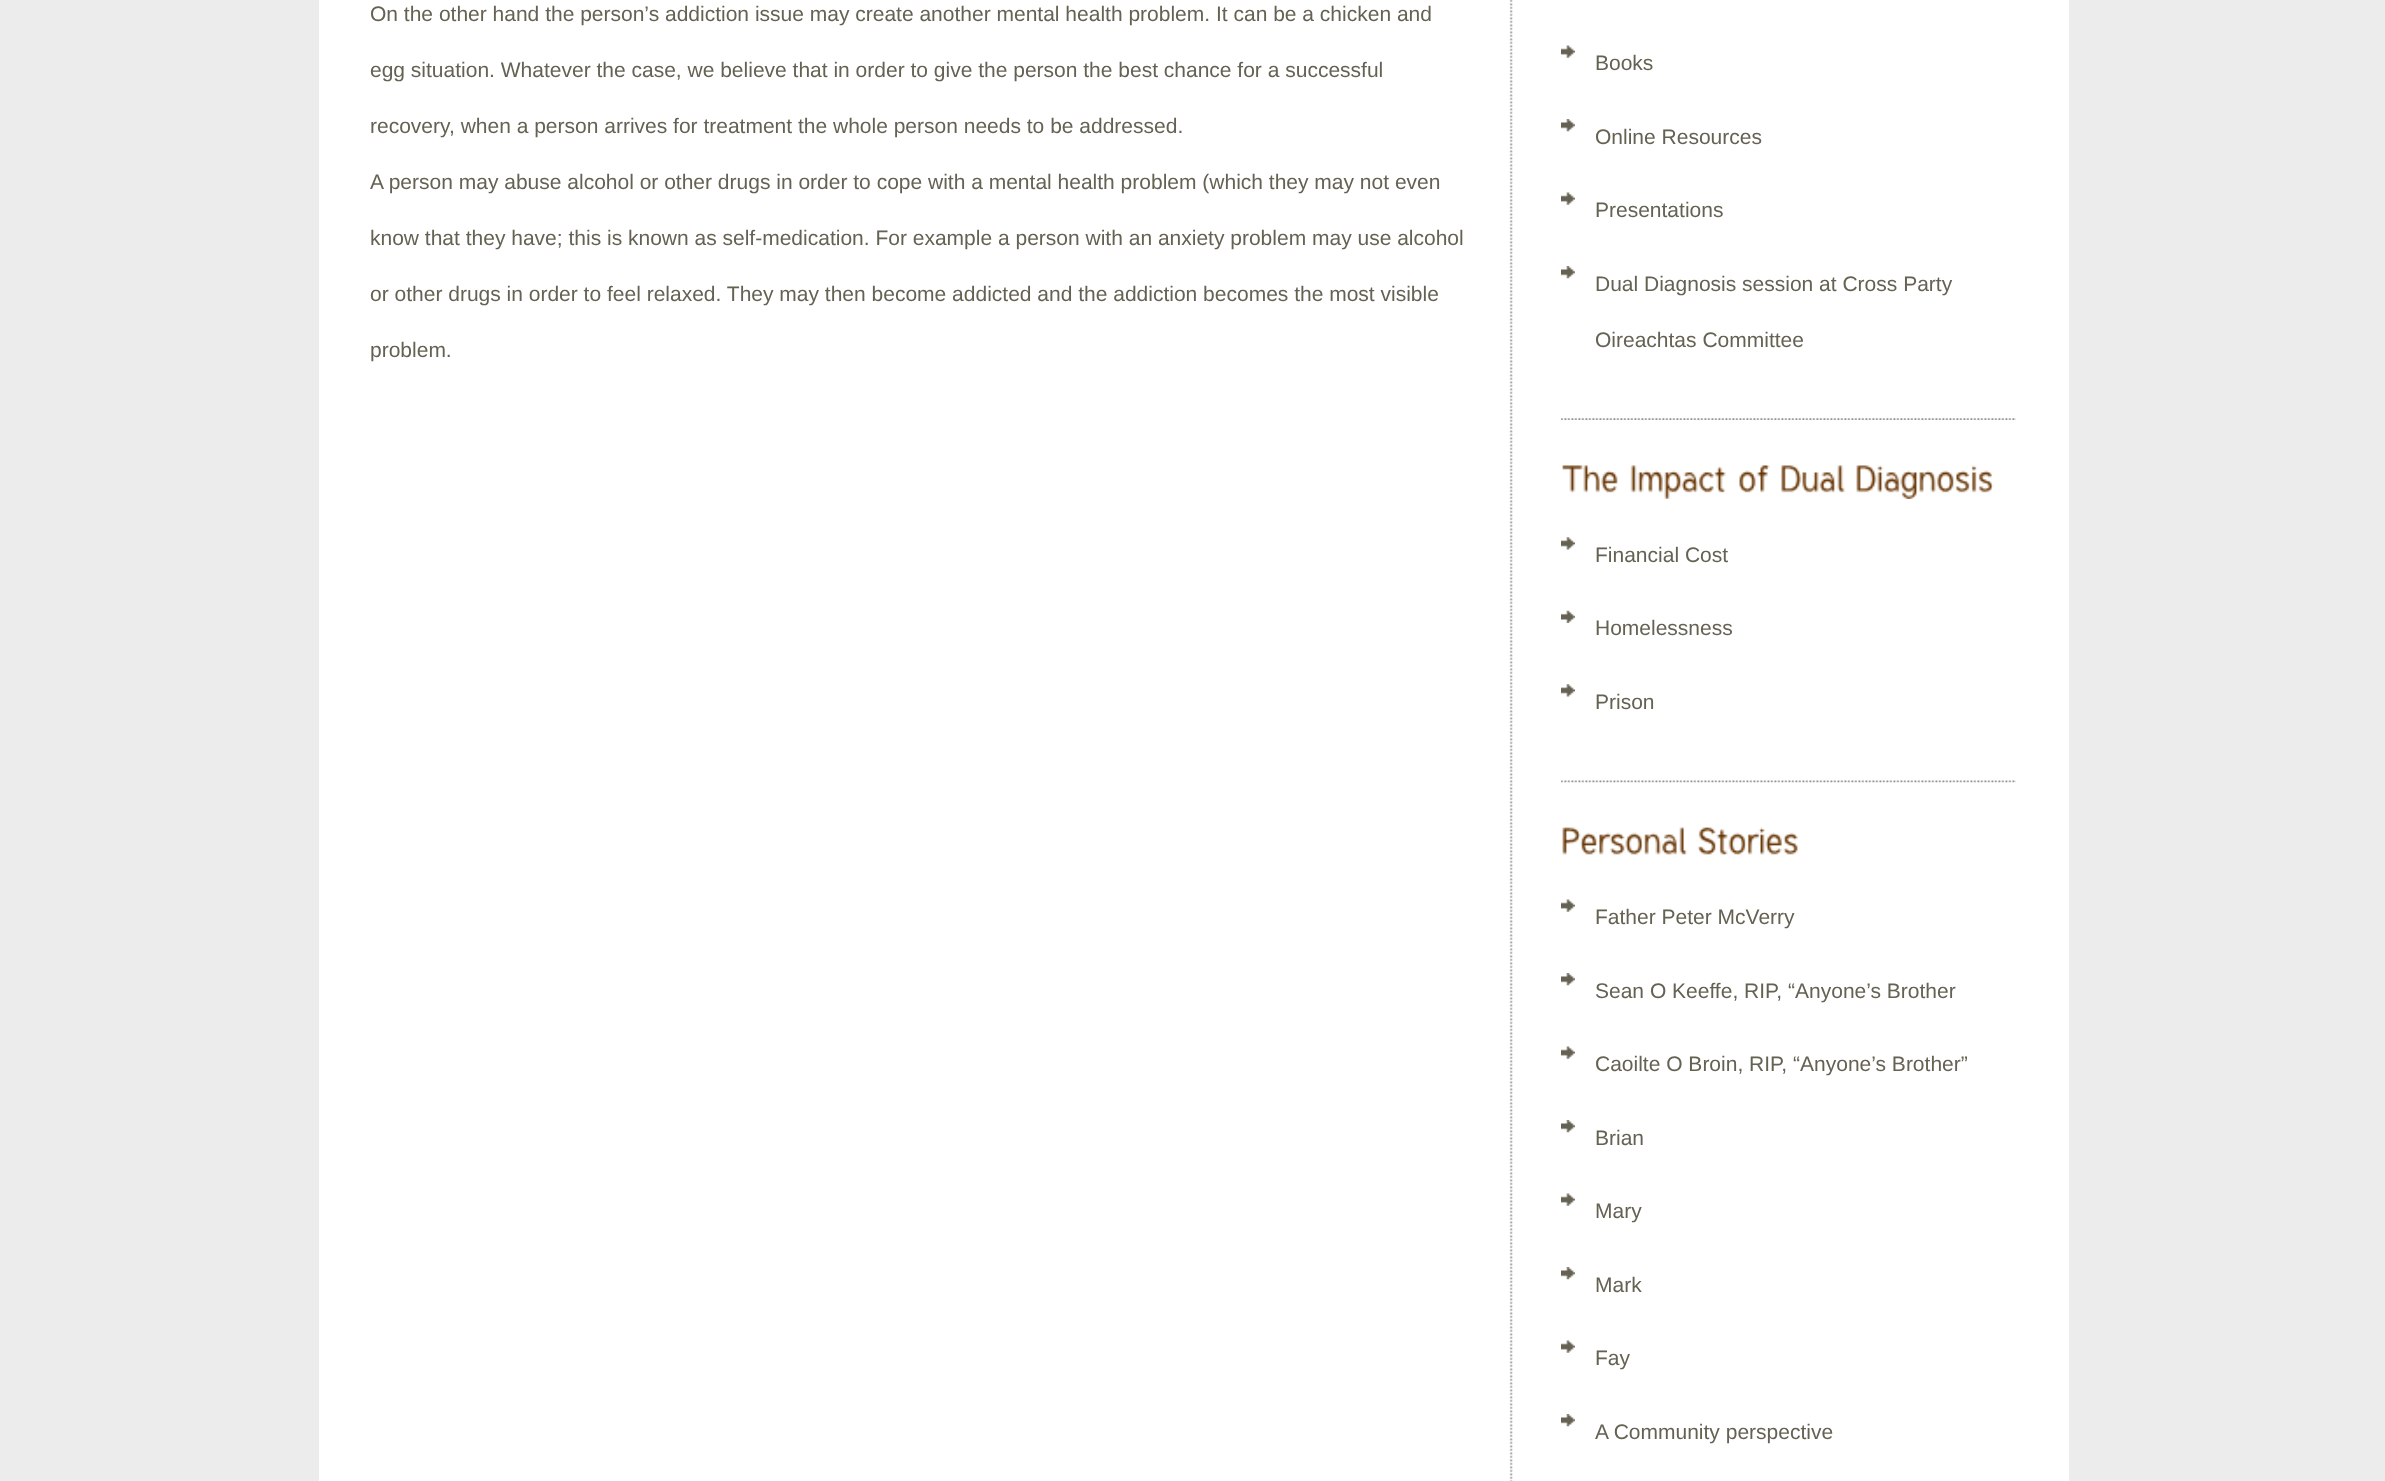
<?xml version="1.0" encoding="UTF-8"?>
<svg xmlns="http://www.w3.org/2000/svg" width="2385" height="1481">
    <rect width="100%" height="100%" fill="#EBECEB"/>
    <rect x="319" y="0" width="1750" height="1481" fill="#FFFFFF"/>
    <image x="1509" y="0" width="4" height="1481" href="img_01.png"/>
    <text x="370" y="21" font-family="Liberation Sans" font-size="21" fill="#656253">On the other hand the person’s addiction issue may create another mental health problem. It can be a chicken and</text>
    <text x="370" y="77" font-family="Liberation Sans" font-size="21" fill="#656253">egg situation. Whatever the case, we believe that in order to give the person the best chance for a successful</text>
    <text x="370" y="133" font-family="Liberation Sans" font-size="21" fill="#656253">recovery, when a person arrives for treatment the whole person needs to be addressed.</text>
    <text x="370" y="189" font-family="Liberation Sans" font-size="21" fill="#656253">A person may abuse alcohol or other drugs in order to cope with a mental health problem (which they may not even</text>
    <text x="370" y="245" font-family="Liberation Sans" font-size="21" fill="#656253">know that they have; this is known as self-medication. For example a person with an anxiety problem may use alcohol</text>
    <text x="370" y="301" font-family="Liberation Sans" font-size="21" fill="#656253">or other drugs in order to feel relaxed. They may then become addicted and the addiction becomes the most visible</text>
    <text x="370" y="357" font-family="Liberation Sans" font-size="21" fill="#656253">problem.</text>
    <image x="1561" y="418" width="455" height="2" href="img_02.png"/>
    <image x="1561" y="45" width="14" height="13" href="img_03.png"/>
    <text x="1595" y="70" font-family="Liberation Sans" font-size="21" fill="#656253">Books</text>
    <image x="1561" y="119" width="14" height="13" href="img_04.png"/>
    <text x="1595" y="144" font-family="Liberation Sans" font-size="21" fill="#656253">Online Resources</text>
    <image x="1561" y="192" width="14" height="13" href="img_03.png"/>
    <text x="1595" y="217" font-family="Liberation Sans" font-size="21" fill="#656253">Presentations</text>
    <image x="1561" y="266" width="14" height="13" href="img_04.png"/>
    <text x="1595" y="291" font-family="Liberation Sans" font-size="21" fill="#656253">Dual Diagnosis session at Cross Party</text>
    <text x="1595" y="347" font-family="Liberation Sans" font-size="21" fill="#656253">Oireachtas Committee</text>
    <image x="1561" y="780" width="455" height="3" href="img_05.png"/>
    <image x="1562" y="465" width="56" height="28" href="img_06.png"/>
    <image x="1630" y="465" width="96" height="34" href="img_07.png"/>
    <image x="1739" y="465" width="31" height="28" href="img_08.png"/>
    <image x="1781" y="465" width="64" height="28" href="img_09.png"/>
    <image x="1856" y="465" width="138" height="34" href="img_10.png"/>
    <image x="1561" y="537" width="14" height="13" href="img_11.png"/>
    <text x="1595" y="562" font-family="Liberation Sans" font-size="21" fill="#656253">Financial Cost</text>
    <image x="1561" y="610" width="14" height="13" href="img_12.png"/>
    <text x="1595" y="635" font-family="Liberation Sans" font-size="21" fill="#656253">Homelessness</text>
    <image x="1561" y="684" width="14" height="13" href="img_11.png"/>
    <text x="1595" y="709" font-family="Liberation Sans" font-size="21" fill="#656253">Prison</text>
    <image x="1562" y="827" width="126" height="28" href="img_13.png"/>
    <image x="1697" y="827" width="101" height="28" href="img_14.png"/>
    <image x="1561" y="899" width="14" height="13" href="img_03.png"/>
    <text x="1595" y="924" font-family="Liberation Sans" font-size="21" fill="#656253">Father Peter McVerry</text>
    <image x="1561" y="973" width="14" height="13" href="img_04.png"/>
    <text x="1595" y="998" font-family="Liberation Sans" font-size="21" fill="#656253">Sean O Keeffe, RIP, “Anyone’s Brother</text>
    <image x="1561" y="1046" width="14" height="13" href="img_03.png"/>
    <text x="1595" y="1071" font-family="Liberation Sans" font-size="21" fill="#656253">Caoilte O Broin, RIP, “Anyone’s Brother”</text>
    <image x="1561" y="1120" width="14" height="13" href="img_04.png"/>
    <text x="1595" y="1145" font-family="Liberation Sans" font-size="21" fill="#656253">Brian</text>
    <image x="1561" y="1193" width="14" height="13" href="img_03.png"/>
    <text x="1595" y="1218" font-family="Liberation Sans" font-size="21" fill="#656253">Mary</text>
    <image x="1561" y="1267" width="14" height="13" href="img_04.png"/>
    <text x="1595" y="1292" font-family="Liberation Sans" font-size="21" fill="#656253">Mark</text>
    <image x="1561" y="1340" width="14" height="13" href="img_03.png"/>
    <text x="1595" y="1365" font-family="Liberation Sans" font-size="21" fill="#656253">Fay</text>
    <image x="1561" y="1414" width="14" height="13" href="img_04.png"/>
    <text x="1595" y="1439" font-family="Liberation Sans" font-size="21" fill="#656253">A Community perspective</text>
</svg>
